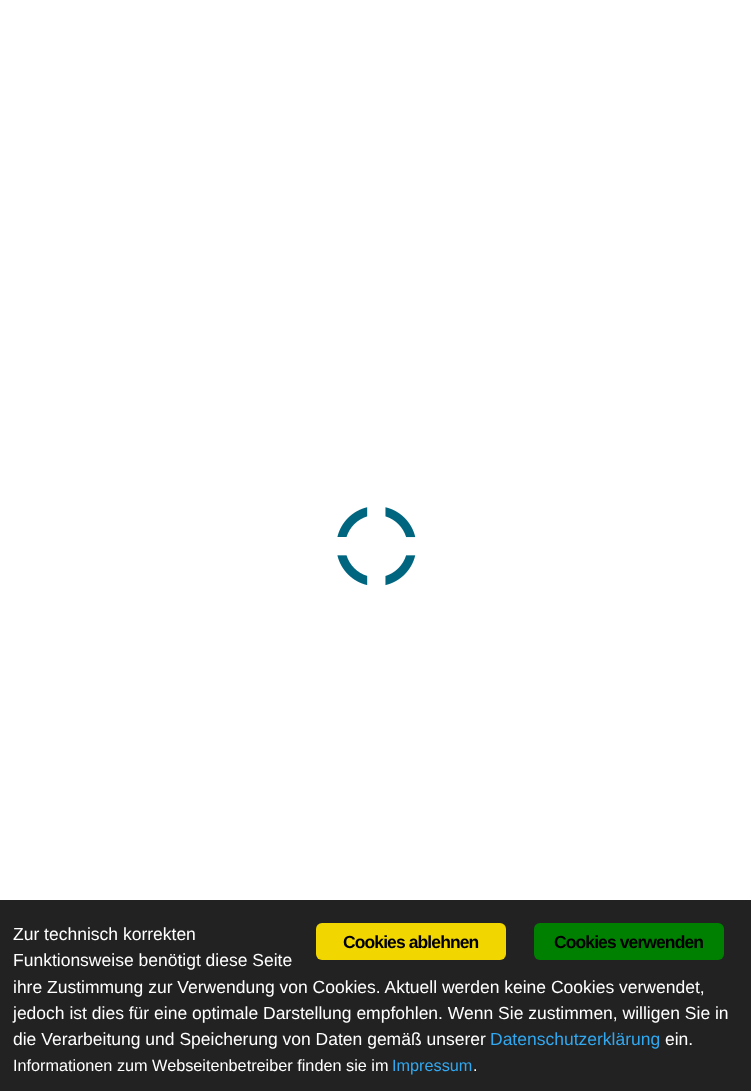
<?xml version="1.0" encoding="UTF-8"?>
<svg xmlns="http://www.w3.org/2000/svg" width="751" height="1091">
    <rect width="100%" height="100%" fill="#FFFFFF"/>
    <image x="337" y="507" width="79" height="79" href="img_01.png"/>
    <rect x="0" y="900" width="751" height="191" fill="#222222"/>
    <text font-family="Liberation Sans" font-size="17.5" fill="#FFFFFF">
        <tspan x="13" y="940">Zur technisch korrekten</tspan>
        <tspan x="13" y="966">Funktionsweise benötigt diese Seite</tspan>
        <tspan x="13" y="993">ihre Zustimmung zur Verwendung von Cookies. Aktuell werden keine Cookies verwendet,</tspan>
        <tspan x="13" y="1019">jedoch ist dies für eine optimale Darstellung empfohlen. Wenn Sie zustimmen, willigen Sie in</tspan>
        <tspan x="13" y="1045">die Verarbeitung und Speicherung von Daten gemäß unserer</tspan>
    </text>
    <text x="490" y="1045" font-family="Liberation Sans" font-size="17.5" fill="#31A8F0">Datenschutzerklärung</text>
    <text x="665" y="1045" font-family="Liberation Sans" font-size="17.5" fill="#FFFFFF">ein.</text>
    <text x="13" y="1071" font-family="Liberation Sans" font-size="16.25" fill="#FFFFFF">Informationen zum Webseitenbetreiber finden sie im</text>
    <text x="392" y="1071" font-family="Liberation Sans" font-size="16.25" fill="#31A8F0">Impressum</text>
    <text x="473" y="1071" font-family="Liberation Sans" font-size="16.25" fill="#FFFFFF">.</text>
    <rect x="316" y="923" width="190" height="37" rx="6" fill="#F1D600"/>
    <text x="343" y="948" font-family="Liberation Sans" font-size="17.5" font-weight="700" letter-spacing="-0.9" fill="#000000">Cookies ablehnen</text>
    <rect x="534" y="923" width="190" height="37" rx="6" fill="#008000"/>
    <text x="554" y="948" font-family="Liberation Sans" font-size="17.5" font-weight="700" letter-spacing="-0.9" fill="#000000">Cookies verwenden</text>
</svg>
